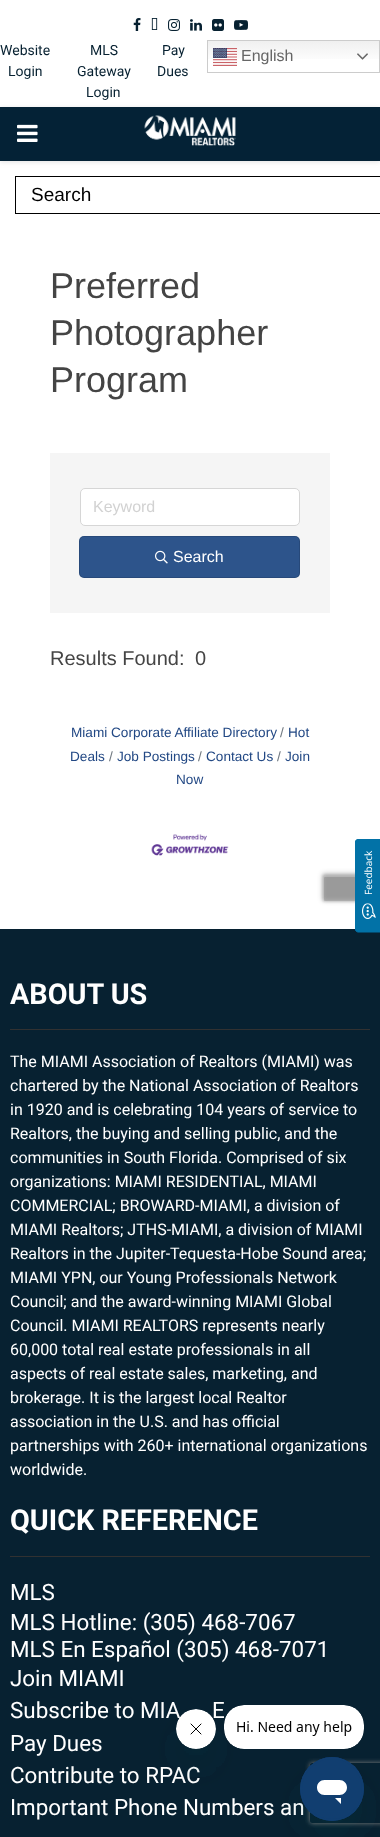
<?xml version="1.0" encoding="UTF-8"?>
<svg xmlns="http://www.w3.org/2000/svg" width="380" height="1837">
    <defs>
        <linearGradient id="g1" gradientUnits="userSpaceOnUse" x1="294" y1="40" x2="294" y2="73"><stop offset="0" stop-color="#EFEFEF"/><stop offset="0.7" stop-color="#FFFFFF"/></linearGradient>
        <filter id="blur1" x="-50%" y="-200%" width="200%" height="500%"><feGaussianBlur stdDeviation="2.5"/></filter>
        <filter id="blur2" x="-50%" y="-200%" width="200%" height="500%"><feGaussianBlur stdDeviation="0.5"/></filter>
        <filter id="blur3" x="-50%" y="-200%" width="200%" height="500%"><feGaussianBlur stdDeviation="1"/></filter>
        <filter id="blur4" x="-50%" y="-200%" width="200%" height="500%"><feGaussianBlur stdDeviation="15"/></filter>
        <clipPath id="clip1"><path d="M 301 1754 H 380 V 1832 H 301 Z M 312 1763 H 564 C 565 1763 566 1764 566 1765 V 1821 C 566 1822 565 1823 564 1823 H 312 C 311 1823 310 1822 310 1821 V 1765 C 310 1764 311 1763 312 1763 Z" clip-rule="evenodd"/></clipPath>
    </defs>
    <rect width="100%" height="100%" fill="#FFFFFF"/>
    <image x="133" y="18" width="8" height="13" href="img_01.png"/>
    <image x="151" y="18" width="7" height="12" href="img_02.png"/>
    <image x="168" y="19" width="12" height="12" href="img_03.png"/>
    <image x="190" y="19" width="12" height="12" href="img_04.png"/>
    <image x="212" y="19" width="12" height="12" href="img_05.png"/>
    <image x="234" y="20" width="14" height="10" href="img_06.png"/>
    <text x="0" y="55" font-family="Roboto" font-size="14" fill="#072131">Website</text>
    <text x="8" y="76" font-family="Roboto" font-size="14" fill="#072131">Login</text>
    <text x="90" y="55" font-family="Roboto" font-size="14" fill="#072131">MLS</text>
    <text x="77" y="76" font-family="Roboto" font-size="14" fill="#072131">Gateway</text>
    <text x="86" y="97" font-family="Roboto" font-size="14" fill="#072131">Login</text>
    <text x="162" y="55" font-family="Roboto" font-size="14" fill="#072131">Pay</text>
    <text x="157" y="76" font-family="Roboto" font-size="14" fill="#072131">Dues</text>
    <rect x="208" y="41" width="171" height="18" fill="url(#g1)"/>
    <rect x="207.5" y="40.5" width="172" height="32" fill="none" stroke="#CCCCCC"/>
    <image x="213" y="48" width="24" height="18" href="img_07.png"/>
    <text x="241" y="61" font-family="Liberation Sans" font-size="16" fill="#666666">English</text>
    <image x="357" y="53" width="11" height="7" href="img_08.png"/>
    <rect x="0" y="108" width="380" height="54" fill="#BEBEBE" fill-opacity="0.46" filter="url(#blur1)"/>
    <rect x="0" y="107" width="380" height="54" fill="#042236"/>
    <image x="17" y="124" width="21" height="18" href="img_09.png"/>
    <image x="144" y="115" width="92" height="31" href="img_10.png"/>
    <rect x="15.5" y="176.5" width="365" height="37" fill="none" stroke="#000000"/>
    <text x="31" y="201" font-family="Liberation Sans" font-size="19" fill="#000000">Search</text>
    <text font-family="Liberation Sans" font-size="36" fill="#444444">
        <tspan x="50" y="298">Preferred</tspan>
        <tspan x="50" y="345">Photographer</tspan>
        <tspan x="50" y="392">Program</tspan>
    </text>
    <rect x="50" y="453" width="280" height="160" fill="#F5F5F5"/>
    <rect x="80.5" y="488.5" width="219" height="37" rx="4.5" fill="#FFFFFF" stroke="#D6D6D6"/>
    <text x="93" y="512" font-family="Liberation Sans" font-size="16" fill="#D2D2D2">Keyword</text>
    <rect x="79" y="536" width="221" height="42" rx="5" fill="#2D548B"/>
    <rect x="79.5" y="536.5" width="220" height="41" rx="4.5" fill="none" stroke="#000000" stroke-opacity="0.12"/>
    <image x="155" y="550" width="13" height="14" href="img_11.png"/>
    <text x="173" y="562" font-family="Liberation Sans" font-size="16" fill="#FFFFFF">Search</text>
    <text x="50" y="665" font-family="Liberation Sans" font-size="20" fill="#444444">Results Found:</text>
    <text x="195" y="665" font-family="Liberation Sans" font-size="20" fill="#444444">0</text>
    <text x="71" y="737" font-family="Liberation Sans" font-size="13.6" fill="#224884">Miami Corporate Affiliate Directory</text>
    <text x="280" y="737" font-family="Liberation Sans" font-size="13.6" fill="#6C757D">/</text>
    <text x="288" y="737" font-family="Liberation Sans" font-size="13.6" fill="#224884">Hot</text>
    <text x="70" y="761" font-family="Liberation Sans" font-size="13.6" fill="#224884">Deals</text>
    <text x="109" y="761" font-family="Liberation Sans" font-size="13.6" fill="#6C757D">/</text>
    <text x="117" y="761" font-family="Liberation Sans" font-size="13.6" fill="#224884">Job Postings</text>
    <text x="277" y="761" font-family="Liberation Sans" font-size="13.6" fill="#6C757D">/</text>
    <text x="285" y="761" font-family="Liberation Sans" font-size="13.6" fill="#224884">Join</text>
    <text x="176" y="784" font-family="Liberation Sans" font-size="13.6" fill="#224884">Now</text>
    <text x="198" y="761" font-family="Liberation Sans" font-size="13.6" fill="#6C757D">/</text>
    <text x="206" y="761" font-family="Liberation Sans" font-size="13.6" fill="#224884">Contact Us</text>
    <image x="151" y="834" width="78" height="22" href="img_12.png"/>
    <rect x="0" y="929" width="380" height="908" fill="#072131"/>
    <rect x="10" y="1029" width="360" height="1" fill="#313131"/>
    <text x="10" y="1004" font-family="Roboto" font-size="28.75" font-weight="700" fill="#FFFFFF">ABOUT US</text>
    <text font-family="Roboto" font-size="16" fill="#FFFFFF">
        <tspan x="10" y="1067">The MIAMI Association of Realtors (MIAMI) was</tspan>
        <tspan x="10" y="1091">chartered by the National Association of Realtors</tspan>
        <tspan x="10" y="1115">in 1920 and is celebrating 104 years of service to</tspan>
        <tspan x="10" y="1139">Realtors, the buying and selling public, and the</tspan>
        <tspan x="10" y="1163">communities in South Florida. Comprised of six</tspan>
        <tspan x="10" y="1187">organizations: MIAMI RESIDENTIAL, MIAMI</tspan>
        <tspan x="10" y="1211">COMMERCIAL; BROWARD-MIAMI, a division of</tspan>
        <tspan x="10" y="1235">MIAMI Realtors; JTHS-MIAMI, a division of MIAMI</tspan>
        <tspan x="10" y="1259">Realtors in the Jupiter-Tequesta-Hobe Sound area;</tspan>
        <tspan x="10" y="1283">MIAMI YPN, our Young Professionals Network</tspan>
        <tspan x="10" y="1307">Council; and the award-winning MIAMI Global</tspan>
        <tspan x="10" y="1331">Council. MIAMI REALTORS represents nearly</tspan>
        <tspan x="10" y="1355">60,000 total real estate professionals in all</tspan>
        <tspan x="10" y="1379">aspects of real estate sales, marketing, and</tspan>
        <tspan x="10" y="1403">brokerage. It is the largest local Realtor</tspan>
        <tspan x="10" y="1427">association in the U.S. and has official</tspan>
        <tspan x="10" y="1451">partnerships with 260+ international organizations</tspan>
        <tspan x="10" y="1475">worldwide.</tspan>
    </text>
    <rect x="10" y="1556" width="360" height="1" fill="#313131"/>
    <text x="10" y="1530" font-family="Roboto" font-size="28.75" font-weight="700" fill="#FFFFFF">QUICK REFERENCE</text>
    <text font-family="Roboto" font-size="22.4" fill="#FFFFFF">
        <tspan x="10" y="1600">MLS</tspan>
        <tspan x="10" y="1630">MLS Hotline: (305) 468-7067</tspan>
        <tspan x="10" y="1657">MLS En Español (305) 468-7071</tspan>
        <tspan x="10" y="1686">Join MIAMI</tspan>
        <tspan x="10" y="1718">Subscribe to MIA</tspan>
    </text>
    <text x="212" y="1718" font-family="Roboto" font-size="22.4" fill="#FFFFFF">E</text>
    <text font-family="Roboto" font-size="22.4" fill="#FFFFFF">
        <tspan x="10" y="1751">Pay Dues</tspan>
        <tspan x="10" y="1783">Contribute to RPAC</tspan>
        <tspan x="10" y="1815">Important Phone Numbers an</tspan>
    </text>
    <rect x="322" y="873" width="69" height="28" rx="3" fill="#000000" fill-opacity="0.2" filter="url(#blur1)"/>
    <rect x="324" y="877" width="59" height="24" rx="1" fill="#000000" fill-opacity="0.12" filter="url(#blur2)"/>
    <rect x="322" y="874" width="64" height="28" rx="3" fill="#000000" fill-opacity="0.14" filter="url(#blur3)"/>
    <path d="M 355 929 V 842 C 355 840 357 839 358 839 H 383 V 932 H 358 C 357 932 355 931 355 929 Z" fill="#0272A7"/>
    <path d="M 355.5 929.5 V 842 C 355.5 840.5 357 839.5 358 839.5 H 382.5 V 932 H 358 C 357 932 355.5 931 355.5 929.5 Z" fill="none" stroke="#0272A7"/>
    <text x="372" y="895" transform="rotate(-90 372 895)" font-family="Open Sans" font-size="10" fill="#FFFFFF">Feedback</text>
    <image x="362" y="903" width="14" height="16" href="img_13.png"/>
    <rect x="176" y="1729" width="40" height="40" rx="20" fill="#17494D" fill-opacity="0.15" filter="url(#blur4)"/>
    <image x="176" y="1709" width="40" height="40" href="img_14.png"/>
    <image x="224" y="1705" width="140" height="44" href="img_15.png"/>
    <rect x="300" y="1777" width="64" height="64" rx="32" fill="#17494D" fill-opacity="0.15" filter="url(#blur4)"/>
    <g clip-path="url(#clip1)">
        <rect x="310" y="1763" width="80" height="60" rx="2" fill="#808080" filter="url(#blur1)"/>
    </g>
    <image x="300" y="1757" width="64" height="64" href="img_16.png"/>
</svg>
